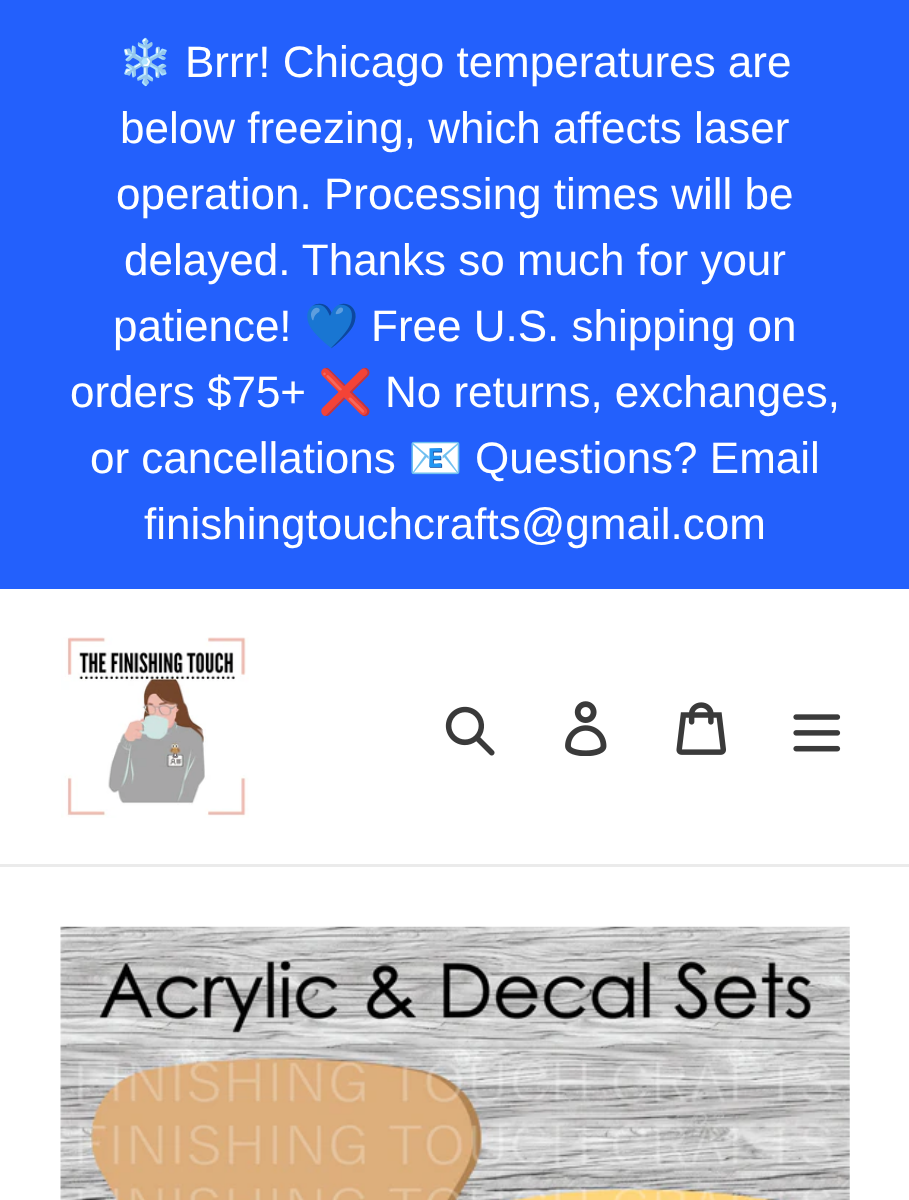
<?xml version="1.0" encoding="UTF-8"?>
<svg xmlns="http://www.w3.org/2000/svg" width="909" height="1200">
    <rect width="100%" height="100%" fill="#FFFFFF"/>
    <rect x="0" y="0" width="909" height="589" fill="#2360FC"/>
    <text x="118" y="77" font-family="Noto Color Emoji" font-size="44" fill="#FFFFFF">❄️</text>
    <text x="185" y="77" font-family="Liberation Sans" font-size="44" fill="#FFFFFF">Brrr! Chicago temperatures are</text>
    <text x="120" y="143" font-family="Liberation Sans" font-size="44" fill="#FFFFFF">below freezing, which affects laser</text>
    <text x="116" y="209" font-family="Liberation Sans" font-size="44" fill="#FFFFFF">operation. Processing times will be</text>
    <text x="124" y="275" font-family="Liberation Sans" font-size="44" fill="#FFFFFF">delayed. Thanks so much for your</text>
    <text x="113" y="341" font-family="Liberation Sans" font-size="44" fill="#FFFFFF">patience!</text>
    <text x="304" y="341" font-family="Noto Color Emoji" font-size="44" fill="#FFFFFF">💙</text>
    <text x="371" y="341" font-family="Liberation Sans" font-size="44" fill="#FFFFFF">Free U.S. shipping on</text>
    <text x="70" y="407" font-family="Liberation Sans" font-size="44" fill="#FFFFFF">orders $75+</text>
    <text x="318" y="407" font-family="Noto Color Emoji" font-size="44" fill="#FFFFFF">❌</text>
    <text x="385" y="407" font-family="Liberation Sans" font-size="44" fill="#FFFFFF">No returns, exchanges,</text>
    <text x="90" y="473" font-family="Liberation Sans" font-size="44" fill="#FFFFFF">or cancellations</text>
    <text x="408" y="473" font-family="Noto Color Emoji" font-size="44" fill="#FFFFFF">📧</text>
    <text x="475" y="473" font-family="Liberation Sans" font-size="44" fill="#FFFFFF">Questions? Email</text>
    <text x="144" y="539" font-family="Liberation Sans" font-size="44" fill="#FFFFFF">finishingtouchcrafts@gmail.com</text>
    <rect x="0" y="864" width="909" height="3" fill="#EBEBEB"/>
    <image x="61" y="637" width="188" height="181" href="img_01.png"/>
    <image x="445" y="706" width="50" height="50" href="img_02.png"/>
    <image x="565" y="701" width="42" height="55" href="img_03.png"/>
    <image x="676" y="702" width="50" height="53" href="img_04.png"/>
    <image x="793" y="714" width="48" height="38" href="img_05.png"/>
    <image x="60" y="926" width="790" height="274" href="img_06.png"/>
</svg>
